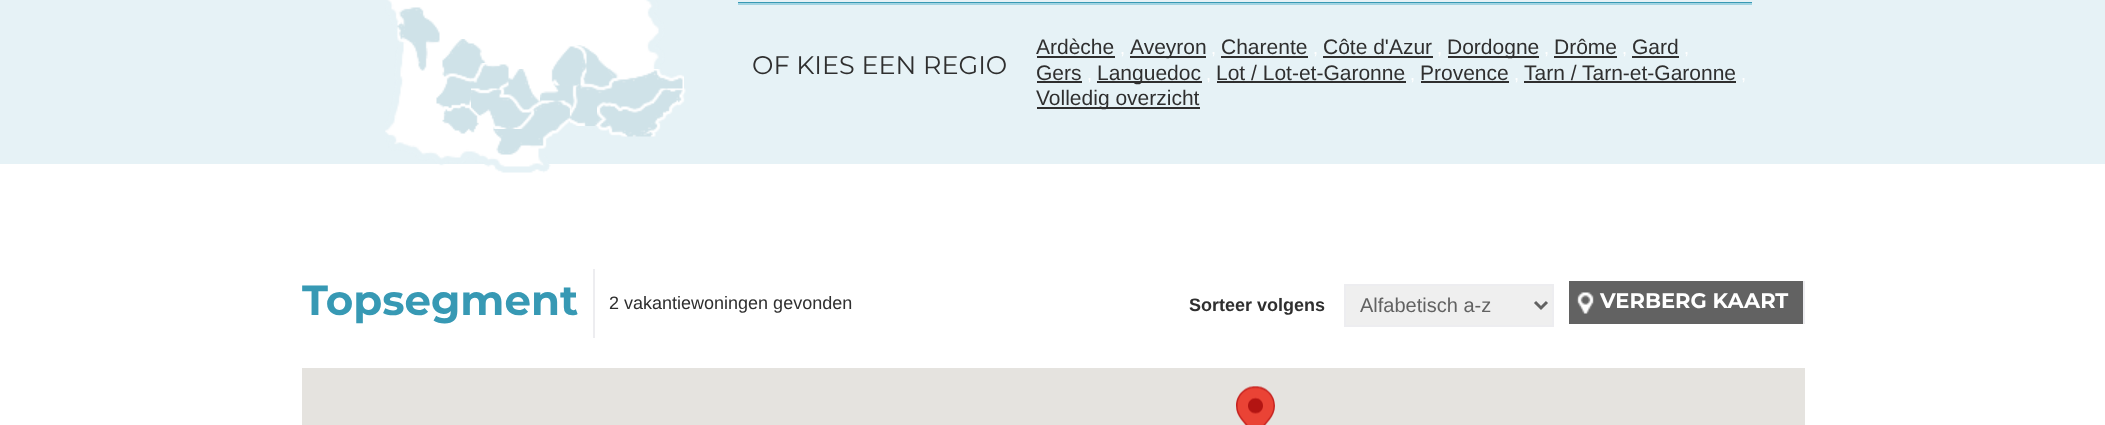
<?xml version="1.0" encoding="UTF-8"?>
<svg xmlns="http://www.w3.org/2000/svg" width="2105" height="425">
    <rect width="100%" height="100%" fill="#FFFFFF"/>
    <rect x="0" y="0" width="2105" height="164" fill="#E6F2F6"/>
    <image x="385" y="0" width="290" height="173" href="img_01.png"/>
    <image x="397" y="7" width="43" height="64" href="img_02.png"/>
    <image x="442" y="39" width="45" height="41" href="img_03.png"/>
    <image x="570" y="45" width="50" height="43" href="img_05.png"/>
    <image x="540" y="73" width="35" height="49" href="img_08.png"/>
    <image x="500" y="69" width="40" height="41" href="img_07.png"/>
    <image x="493" y="100" width="79" height="55" href="img_13.png"/>
    <image x="570" y="69" width="114" height="57" href="img_09.png"/>
    <image x="551" y="45" width="36" height="41" href="img_04.png"/>
    <image x="436" y="63" width="73" height="47" href="img_06.png"/>
    <image x="471" y="88" width="64" height="41" href="img_10.png"/>
    <image x="597" y="88" width="89" height="49" href="img_11.png"/>
    <image x="442" y="103" width="38" height="31" href="img_12.png"/>
    <rect x="738" y="2" width="1014" height="1" fill="#3799B4"/>
    <rect x="738" y="3" width="1014" height="2" fill="#A2D4E2"/>
    <text x="752" y="74" font-family="Montserrat" font-size="25.5" fill="#2F2F2F">OF KIES EEN REGIO</text>
    <text x="1036" y="54" font-family="Liberation Sans" font-size="21" fill="#2F2F2F">Ardèche</text>
    <rect x="1037" y="56" width="78" height="2" fill="#2F2F2F"/>
    <text x="1120" y="54" font-family="Liberation Sans" font-size="18" fill="#FFFFFF">,</text>
    <rect x="1130" y="56" width="76" height="2" fill="#2F2F2F"/>
    <text x="1130" y="54" font-family="Liberation Sans" font-size="21" fill="#2F2F2F">Aveyron</text>
    <text x="1211" y="54" font-family="Liberation Sans" font-size="18" fill="#FFFFFF">,</text>
    <text x="1221" y="54" font-family="Liberation Sans" font-size="21" fill="#2F2F2F">Charente</text>
    <rect x="1221" y="56" width="87" height="2" fill="#2F2F2F"/>
    <text x="1313" y="54" font-family="Liberation Sans" font-size="18" fill="#FFFFFF">,</text>
    <text x="1323" y="54" font-family="Liberation Sans" font-size="21" fill="#2F2F2F">Côte d'Azur</text>
    <rect x="1323" y="56" width="110" height="2" fill="#2F2F2F"/>
    <text x="1437" y="54" font-family="Liberation Sans" font-size="18" fill="#FFFFFF">,</text>
    <rect x="1448" y="56" width="91" height="2" fill="#2F2F2F"/>
    <text x="1447" y="54" font-family="Liberation Sans" font-size="21" fill="#2F2F2F">Dordogne</text>
    <text x="1544" y="54" font-family="Liberation Sans" font-size="18" fill="#FFFFFF">,</text>
    <text x="1554" y="54" font-family="Liberation Sans" font-size="21" fill="#2F2F2F">Drôme</text>
    <rect x="1554" y="56" width="63" height="2" fill="#2F2F2F"/>
    <text x="1622" y="54" font-family="Liberation Sans" font-size="18" fill="#FFFFFF">,</text>
    <text x="1632" y="54" font-family="Liberation Sans" font-size="21" fill="#2F2F2F">Gard</text>
    <rect x="1632" y="56" width="47" height="2" fill="#2F2F2F"/>
    <text x="1684" y="54" font-family="Liberation Sans" font-size="18" fill="#FFFFFF">,</text>
    <text x="1036" y="80" font-family="Liberation Sans" font-size="21" fill="#2F2F2F">Gers</text>
    <rect x="1037" y="81" width="45" height="2" fill="#2F2F2F"/>
    <text x="1087" y="80" font-family="Liberation Sans" font-size="18" fill="#FFFFFF">,</text>
    <rect x="1097" y="81" width="105" height="2" fill="#2F2F2F"/>
    <text x="1097" y="80" font-family="Liberation Sans" font-size="21" fill="#2F2F2F">Languedoc</text>
    <text x="1206" y="80" font-family="Liberation Sans" font-size="18" fill="#FFFFFF">,</text>
    <text x="1216" y="80" font-family="Liberation Sans" font-size="21" fill="#2F2F2F">Lot / Lot-et-Garonne</text>
    <rect x="1217" y="81" width="189" height="2" fill="#2F2F2F"/>
    <text x="1410" y="80" font-family="Liberation Sans" font-size="18" fill="#FFFFFF">,</text>
    <text x="1420" y="80" font-family="Liberation Sans" font-size="21" fill="#2F2F2F">Provence</text>
    <rect x="1421" y="81" width="88" height="2" fill="#2F2F2F"/>
    <text x="1514" y="80" font-family="Liberation Sans" font-size="18" fill="#FFFFFF">,</text>
    <text x="1524" y="80" font-family="Liberation Sans" font-size="21" fill="#2F2F2F">Tarn / Tarn-et-Garonne</text>
    <rect x="1524" y="81" width="212" height="2" fill="#2F2F2F"/>
    <text x="1741" y="80" font-family="Liberation Sans" font-size="18" fill="#FFFFFF">,</text>
    <rect x="1037" y="107" width="163" height="2" fill="#2F2F2F"/>
    <text x="1036" y="105" font-family="Liberation Sans" font-size="21" fill="#2F2F2F">Volledig overzicht</text>
    <rect x="593" y="269" width="2" height="69" fill="#EDEDF0"/>
    <text x="302" y="315" font-family="Montserrat" font-size="42" font-weight="700" fill="#3799B4">Topsegment</text>
    <text x="609" y="309" font-family="Liberation Sans" font-size="18" fill="#2F2F2F">2 vakantiewoningen gevonden</text>
    <text x="1189" y="311" font-family="Liberation Sans" font-size="18" font-weight="700" fill="#2F2F2F">Sorteer volgens</text>
    <rect x="1345" y="285" width="208" height="41" fill="#EFEFEF" stroke="#EDEDF0" stroke-width="2"/>
    <path d="M 1535 302 L 1541 308 L 1547 302" fill="none" stroke="#626262" stroke-width="3"/>
    <text x="1360" y="312" font-family="Liberation Sans" font-size="20" fill="#626262">Alfabetisch a-z</text>
    <rect x="1569" y="281" width="234" height="43" fill="#626262"/>
    <image x="1576" y="292" width="18" height="22" href="img_14.png"/>
    <rect x="1803" y="281" width="2" height="43" fill="#EDEDF0"/>
    <text x="1600" y="308" font-family="Montserrat" font-size="21" font-weight="700" fill="#FFFFFF">VERBERG KAART</text>
    <rect x="302" y="368" width="1503" height="57" fill="#E5E3DF"/>
    <image x="1236" y="386" width="39" height="39" href="img_15.png"/>
</svg>
